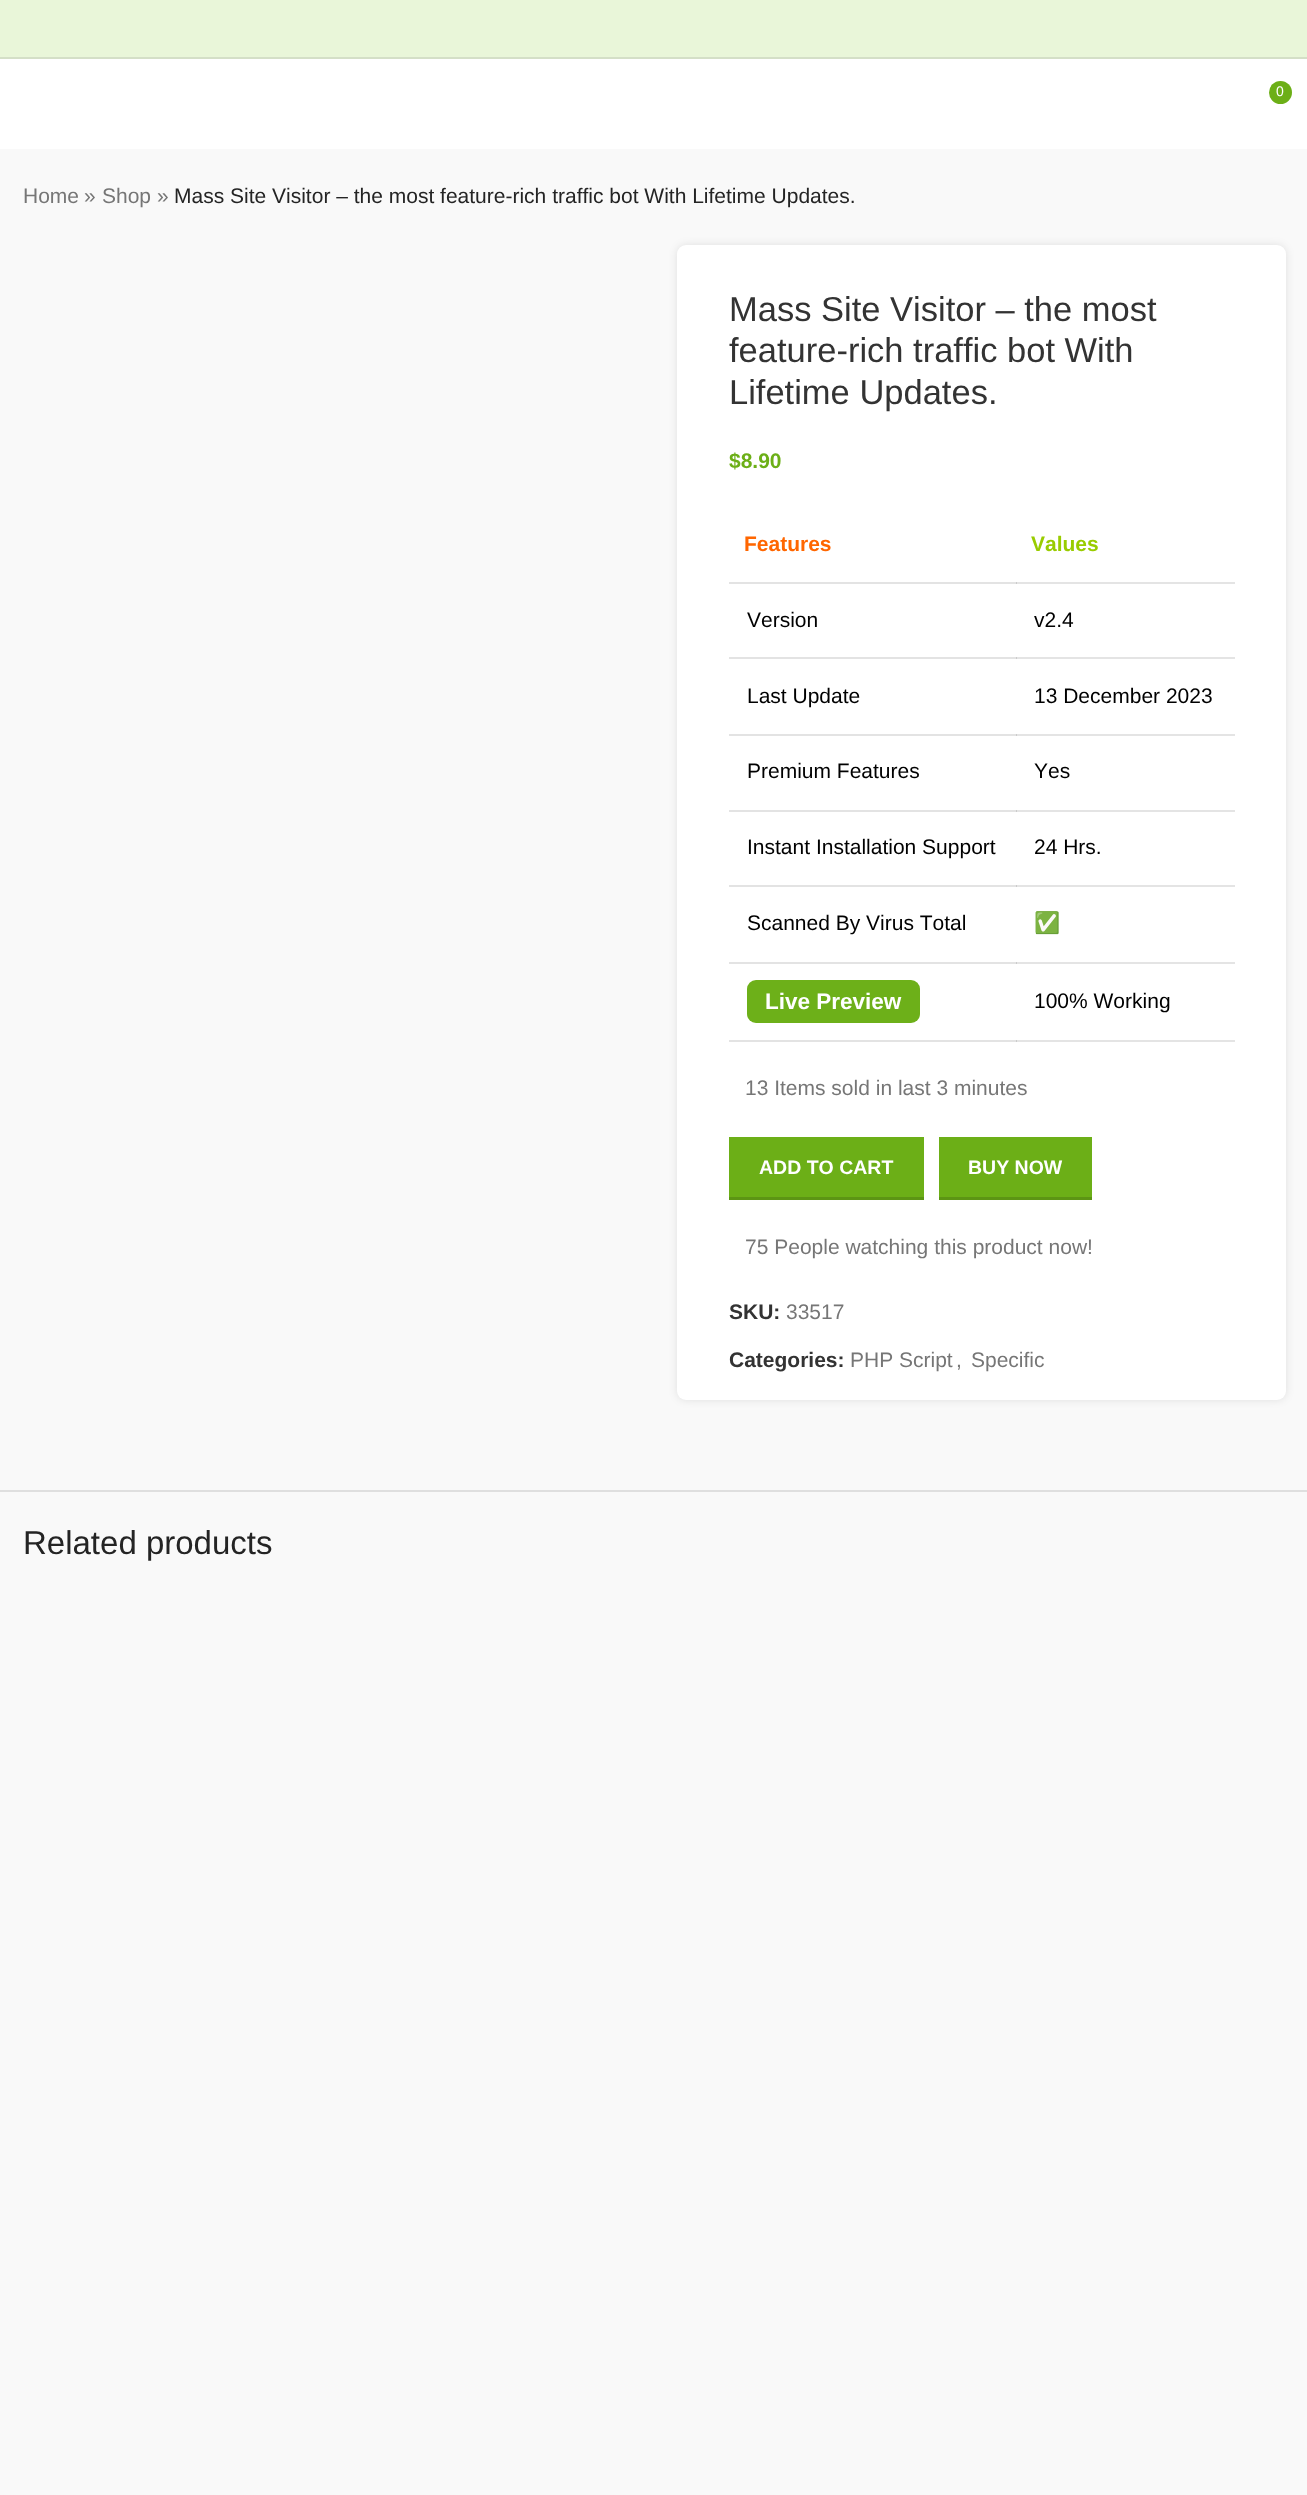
<?xml version="1.0" encoding="UTF-8"?>
<svg xmlns="http://www.w3.org/2000/svg" width="1307" height="2495">
    <style>*{font-kerning:none!important;font-variant-ligatures:none!important}</style>
    <defs>
        <filter id="blur1" x="-50%" y="-200%" width="200%" height="500%"><feGaussianBlur stdDeviation="4"/></filter>
    </defs>
    <rect width="100%" height="100%" fill="#FFFFFF"/>
    <rect x="0" y="0" width="1307" height="57" fill="#E9F6D9"/>
    <rect x="0" y="57" width="1307" height="2" fill="#D4DFC7"/>
    <circle cx="1280.5" cy="92.5" r="11.5" fill="#6CAF17"/>
    <text x="1276" y="96" font-family="Liberation Sans" font-size="14" fill="#FFFFFF">0</text>
    <rect x="0" y="149" width="1307" height="2346" fill="#F9F9F9"/>
    <text x="23" y="203" font-family="Liberation Sans" font-size="21" fill="#767676">Home</text>
    <text x="84" y="203" font-family="Liberation Sans" font-size="21" fill="#767676">»</text>
    <text x="102" y="203" font-family="Liberation Sans" font-size="21" fill="#767676">Shop</text>
    <text x="157" y="203" font-family="Liberation Sans" font-size="21" fill="#767676">»</text>
    <text x="174" y="203" font-family="Liberation Sans" font-size="21" fill="#242424">Mass Site Visitor – the most feature-rich traffic bot With Lifetime Updates.</text>
    <rect x="677" y="245" width="609" height="1155" rx="9" fill="#000000" fill-opacity="0.1" filter="url(#blur1)"/>
    <rect x="677" y="245" width="609" height="1155" rx="9" fill="#FFFFFF"/>
    <rect x="729" y="582" width="288" height="2" fill="#E3E3E3"/>
    <rect x="729" y="657" width="288" height="2" fill="#E3E3E3"/>
    <rect x="729" y="734" width="288" height="2" fill="#E3E3E3"/>
    <rect x="729" y="810" width="288" height="2" fill="#E3E3E3"/>
    <rect x="729" y="885" width="288" height="2" fill="#E3E3E3"/>
    <rect x="729" y="962" width="288" height="2" fill="#E3E3E3"/>
    <rect x="729" y="1040" width="288" height="2" fill="#E3E3E3"/>
    <text font-family="Liberation Sans" font-size="34.5" fill="#333333">
        <tspan x="729" y="321">Mass Site Visitor – the most</tspan>
        <tspan x="729" y="362">feature-rich traffic bot With</tspan>
        <tspan x="729" y="404">Lifetime Updates.</tspan>
    </text>
    <text x="729" y="468" font-family="Liberation Sans" font-size="21" font-weight="700" fill="#6CAF17">$8.90</text>
    <text x="744" y="551" font-family="Liberation Sans" font-size="21" font-weight="700" fill="#FF6600">Features</text>
    <rect x="1016" y="582" width="219" height="2" fill="#E4E4E4"/>
    <rect x="1016" y="582" width="1" height="2" fill="#CBCBCB"/>
    <text x="1031" y="551" font-family="Liberation Sans" font-size="21" font-weight="700" fill="#99CC00">Values</text>
    <text x="747" y="627" font-family="Liberation Sans" font-size="21" fill="#000000">Version</text>
    <rect x="1016" y="657" width="219" height="2" fill="#E4E4E4"/>
    <rect x="1016" y="657" width="1" height="2" fill="#CBCBCB"/>
    <text x="1034" y="627" font-family="Liberation Sans" font-size="21" fill="#000000">v2.4</text>
    <text x="747" y="703" font-family="Liberation Sans" font-size="21" fill="#000000">Last Update</text>
    <rect x="1016" y="734" width="219" height="2" fill="#E4E4E4"/>
    <rect x="1016" y="734" width="1" height="2" fill="#CBCBCB"/>
    <text x="1034" y="703" font-family="Liberation Sans" font-size="21" fill="#000000">13 December 2023</text>
    <text x="747" y="778" font-family="Liberation Sans" font-size="21" fill="#000000">Premium Features</text>
    <rect x="1016" y="810" width="219" height="2" fill="#E4E4E4"/>
    <rect x="1016" y="810" width="1" height="2" fill="#CBCBCB"/>
    <text x="1034" y="778" font-family="Liberation Sans" font-size="21" fill="#000000">Yes</text>
    <text x="747" y="854" font-family="Liberation Sans" font-size="21" fill="#000000">Instant Installation Support</text>
    <rect x="1016" y="885" width="219" height="2" fill="#E4E4E4"/>
    <rect x="1016" y="885" width="1" height="2" fill="#CBCBCB"/>
    <text x="1034" y="854" font-family="Liberation Sans" font-size="21" fill="#000000">24 Hrs.</text>
    <text x="747" y="930" font-family="Liberation Sans" font-size="21" fill="#000000">Scanned By Virus Total</text>
    <rect x="1016" y="962" width="219" height="2" fill="#E4E4E4"/>
    <rect x="1016" y="962" width="1" height="2" fill="#CBCBCB"/>
    <text x="1034" y="930" font-family="Noto Color Emoji" font-size="21" fill="#000000">✅</text>
    <rect x="747" y="980" width="173" height="43" rx="9" fill="#6DB019"/>
    <text x="765" y="1009" font-family="Liberation Sans" font-size="22.5" font-weight="700" fill="#FFFFFF">Live Preview</text>
    <rect x="1016" y="1040" width="219" height="2" fill="#E4E4E4"/>
    <rect x="1016" y="1040" width="1" height="2" fill="#CBCBCB"/>
    <text x="1034" y="1008" font-family="Liberation Sans" font-size="21" fill="#000000">100% Working</text>
    <text x="745" y="1095" font-family="Liberation Sans" font-size="21" fill="#767676">13 Items sold in last 3 minutes</text>
    <rect x="729" y="1137" width="195" height="60" fill="#6CAF17"/>
    <rect x="729" y="1197" width="195" height="3" fill="#5C9514"/>
    <text x="759" y="1174" font-family="Liberation Sans" font-size="19.5" font-weight="700" fill="#FFFFFF">ADD TO CART</text>
    <rect x="939" y="1137" width="153" height="60" fill="#6CAF17"/>
    <rect x="939" y="1197" width="153" height="3" fill="#5C9514"/>
    <text x="968" y="1174" font-family="Liberation Sans" font-size="19.5" font-weight="700" fill="#FFFFFF">BUY NOW</text>
    <text x="745" y="1254" font-family="Liberation Sans" font-size="21" fill="#767676">75 People watching this product now!</text>
    <text x="729" y="1319" font-family="Liberation Sans" font-size="21" font-weight="700" fill="#333333">SKU:</text>
    <text x="786" y="1319" font-family="Liberation Sans" font-size="21" fill="#767676">33517</text>
    <text x="729" y="1367" font-family="Liberation Sans" font-size="21" font-weight="700" fill="#333333">Categories:</text>
    <text x="850" y="1367" font-family="Liberation Sans" font-size="21" fill="#767676">PHP Script</text>
    <text x="956" y="1367" font-family="Liberation Sans" font-size="21" fill="#767676">,</text>
    <text x="971" y="1367" font-family="Liberation Sans" font-size="21" fill="#767676">Specific</text>
    <rect x="0" y="1490" width="1307" height="2" fill="#DFDFDF"/>
    <text x="23" y="1554" font-family="Liberation Sans" font-size="33" fill="#242424">Related products</text>
</svg>
